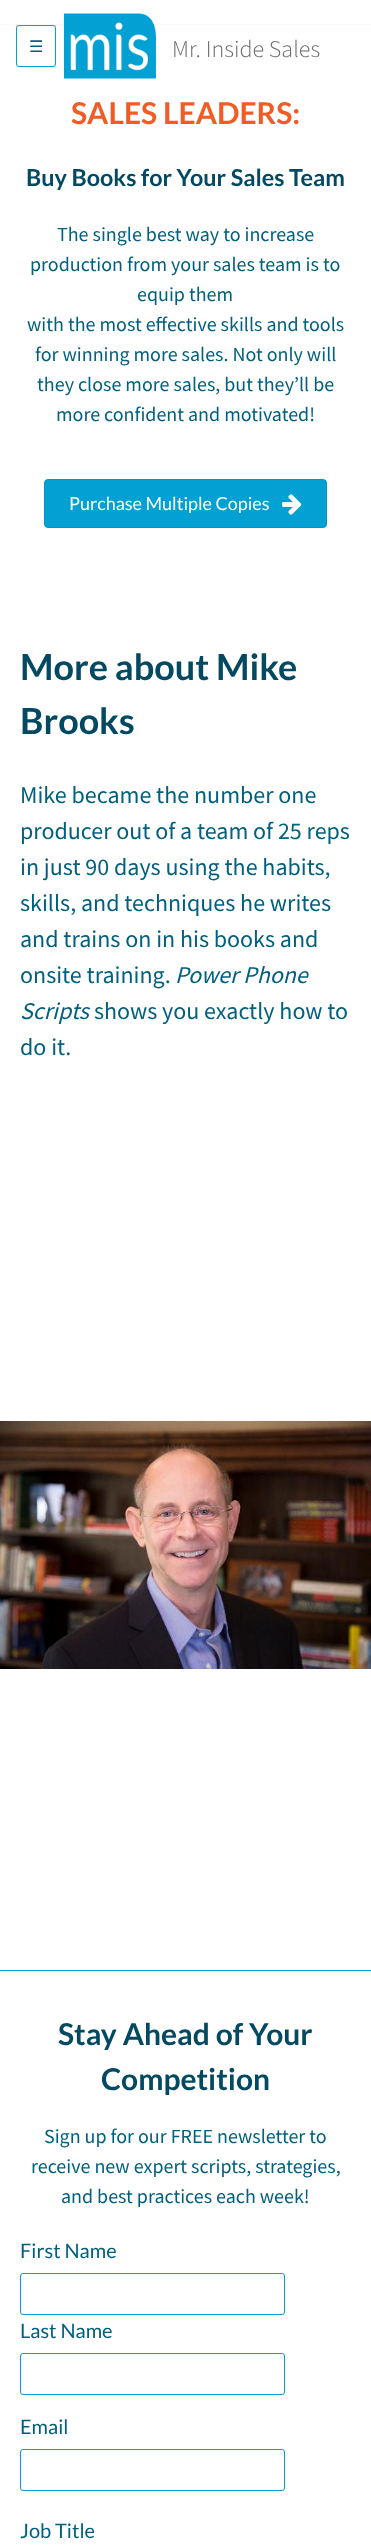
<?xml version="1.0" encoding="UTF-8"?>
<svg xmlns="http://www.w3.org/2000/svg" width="371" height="2547">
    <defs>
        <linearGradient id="g1" gradientUnits="userSpaceOnUse" x1="186" y1="0" x2="186" y2="98"><stop offset="0" stop-color="#FFFFFF"/><stop offset="1" stop-color="#FFFFFF" stop-opacity="0.85"/></linearGradient>
    </defs>
    <rect width="100%" height="100%" fill="#FFFFFF"/>
    <rect x="0" y="24" width="371" height="1" fill="#03A0D3"/>
    <rect x="0" y="24" width="371" height="1" fill="url(#g1)"/>
    <rect x="16.5" y="25.5" width="39" height="41" rx="2.5" fill="none" stroke="#03A0D3"/>
    <text x="29" y="52" font-family="DejaVu Sans" font-size="16" fill="#02607F">☰</text>
    <image x="64" y="13" width="92" height="66" href="img_01.png"/>
    <text x="172" y="57" font-family="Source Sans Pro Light" font-size="24" font-weight="300" fill="#6A6A6A">Mr. Inside Sales</text>
    <text x="71" y="124" font-family="Lato" font-size="30" font-weight="700" fill="#F15C26">SALES LEADERS:</text>
    <text x="26" y="186" font-family="Lato" font-size="23.4" font-weight="700" fill="#024961">Buy Books for Your Sales Team</text>
    <text x="57" y="241" font-family="Source Sans Pro" font-size="20" fill="#02607F">The single best way to increase</text>
    <text x="30" y="271" font-family="Source Sans Pro" font-size="20" fill="#02607F">production from your sales team is to</text>
    <text x="137" y="301" font-family="Source Sans Pro" font-size="20" fill="#02607F">equip them</text>
    <text x="27" y="331" font-family="Source Sans Pro" font-size="20" fill="#02607F">with the most effective skills and tools</text>
    <text x="35" y="361" font-family="Source Sans Pro" font-size="20" fill="#02607F">for winning more sales. Not only will</text>
    <text x="37" y="391" font-family="Source Sans Pro" font-size="20" fill="#02607F">they close more sales, but they’ll be</text>
    <text x="56" y="421" font-family="Source Sans Pro" font-size="20" fill="#02607F">more confident and motivated!</text>
    <rect x="44.5" y="479.5" width="282" height="48" rx="3.5" fill="#03A0D3" stroke="#0094C7"/>
    <text x="69" y="510" font-family="Lato" font-size="18" fill="#FFFFFF">Purchase Multiple Copies</text>
    <image x="282" y="494" width="20" height="21" href="img_02.png"/>
    <rect x="0" y="1970" width="371" height="1" fill="#03A0D3"/>
    <text font-family="Lato" font-size="36" font-weight="700" fill="#024961">
        <tspan x="20" y="680">More about Mike</tspan>
        <tspan x="20" y="734">Brooks</tspan>
    </text>
    <text font-family="Source Sans Pro" font-size="24" fill="#02607F">
        <tspan x="20" y="803">Mike became the number one</tspan>
        <tspan x="20" y="839">producer out of a team of 25 reps</tspan>
        <tspan x="20" y="875">in just 90 days using the habits,</tspan>
        <tspan x="20" y="911">skills, and techniques he writes</tspan>
        <tspan x="20" y="947">and trains on in his books and</tspan>
        <tspan x="20" y="983">onsite training.</tspan>
    </text>
    <text x="175" y="983" font-family="Source Sans Pro" font-size="24" font-style="italic" fill="#02607F">Power Phone</text>
    <text x="20" y="1019" font-family="Source Sans Pro" font-size="24" font-style="italic" fill="#02607F">Scripts</text>
    <text x="94" y="1019" font-family="Source Sans Pro" font-size="24" fill="#02607F">shows you exactly how to</text>
    <text x="20" y="1055" font-family="Source Sans Pro" font-size="24" fill="#02607F">do it.</text>
    <image x="0" y="1421" width="371" height="248" href="img_03.png"/>
    <text x="58" y="2045" font-family="Lato" font-size="30" font-weight="700" fill="#024961">Stay Ahead of Your</text>
    <text x="101" y="2090" font-family="Lato" font-size="30" font-weight="700" fill="#024961">Competition</text>
    <text x="44" y="2143" font-family="Source Sans Pro" font-size="20" fill="#02607F">Sign up for our FREE newsletter to</text>
    <text x="31" y="2173" font-family="Source Sans Pro" font-size="20" fill="#02607F">receive new expert scripts, strategies,</text>
    <text x="61" y="2203" font-family="Source Sans Pro" font-size="20" fill="#02607F">and best practices each week!</text>
    <text x="20" y="2258" font-family="Lato" font-size="20" fill="#02607F">First Name</text>
    <rect x="20.5" y="2273.5" width="264" height="41" rx="2.5" fill="none" stroke="#03A0D3"/>
    <text x="20" y="2338" font-family="Lato" font-size="20" fill="#02607F">Last Name</text>
    <rect x="20.5" y="2353.5" width="264" height="41" rx="2.5" fill="none" stroke="#03A0D3"/>
    <text x="20" y="2434" font-family="Lato" font-size="20" fill="#02607F">Email</text>
    <rect x="20.5" y="2449.5" width="264" height="41" rx="2.5" fill="none" stroke="#03A0D3"/>
    <text x="20" y="2538" font-family="Lato" font-size="20" fill="#02607F">Job Title</text>
</svg>
